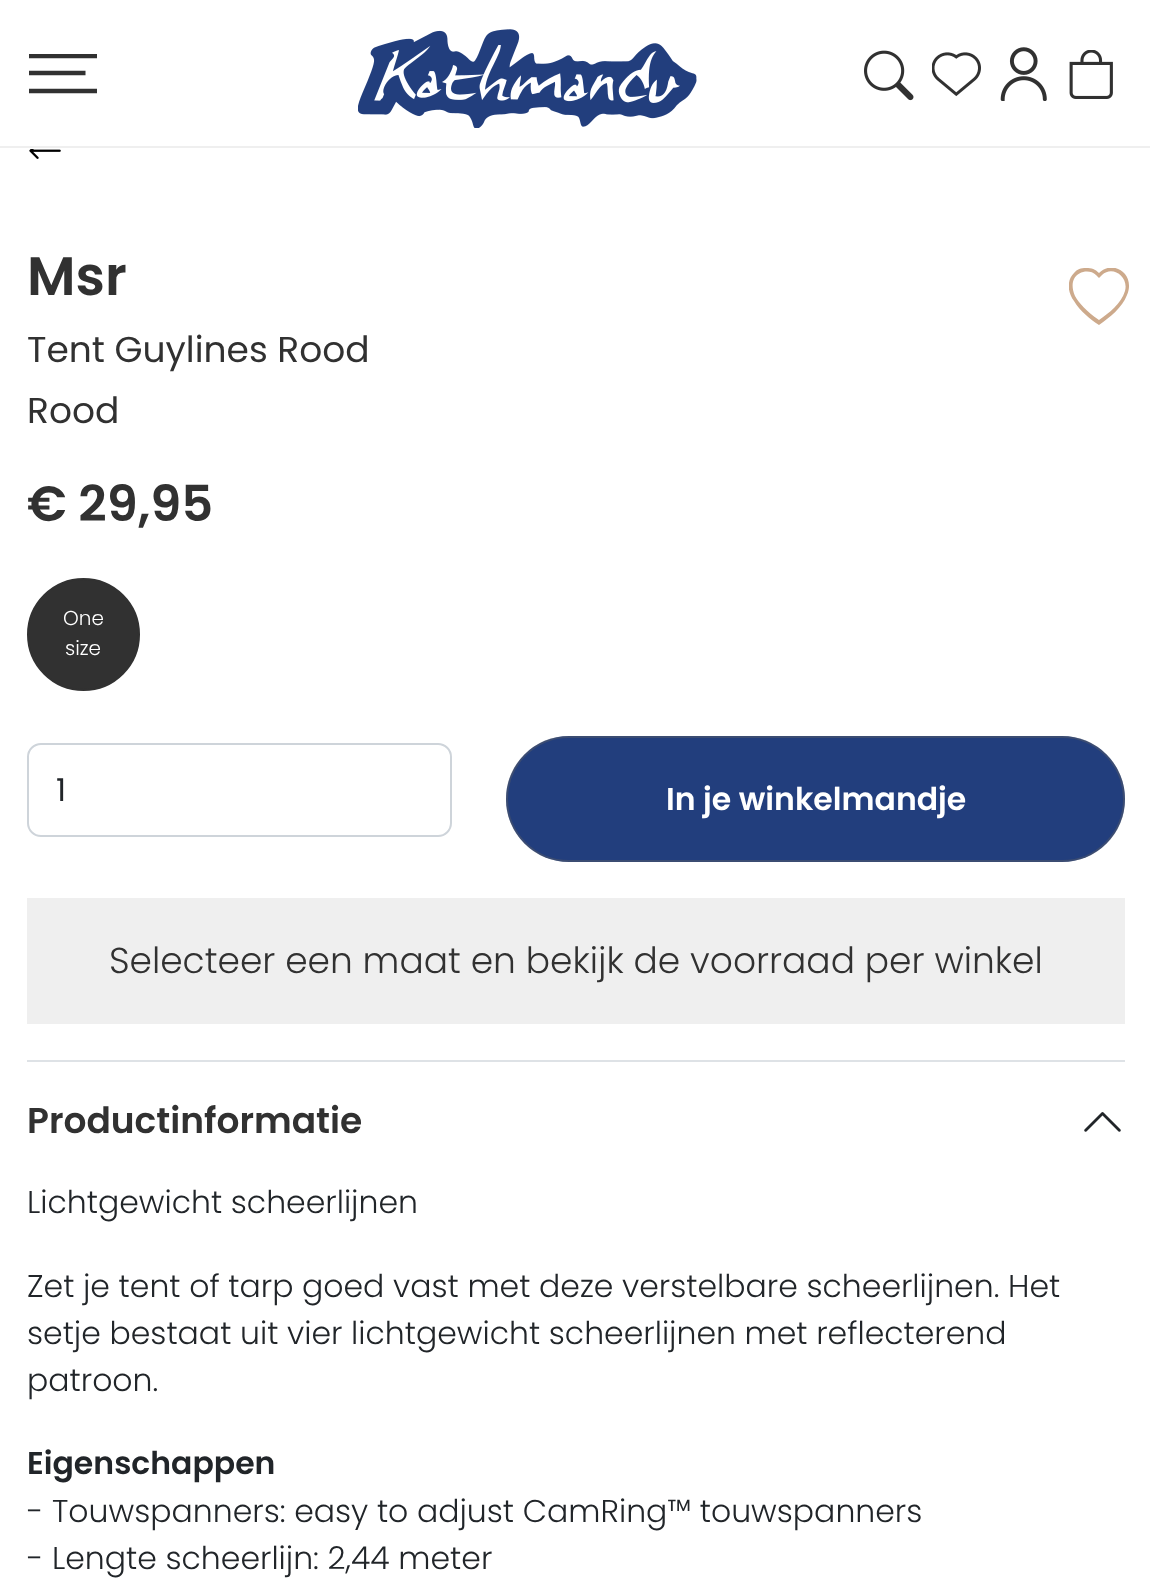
<?xml version="1.0" encoding="UTF-8"?>
<svg xmlns="http://www.w3.org/2000/svg" width="1150" height="1578">
    <defs>
        <clipPath id="clip1"><rect x="29" y="54" width="68" height="41"/></clipPath>
        <clipPath id="clip2"><rect x="1069" y="268" width="61" height="61"/></clipPath>
    </defs>
    <rect width="100%" height="100%" fill="#FFFFFF"/>
    <rect x="0" y="146" width="1150" height="2" fill="#EFEFEF"/>
    <g clip-path="url(#clip1)">
        <path d="M 29 56 H 97" fill="none" stroke="#313131" stroke-width="4.5"/>
    </g>
    <path d="M 29 73 H 85.5" fill="none" stroke="#313131" stroke-width="4.5"/>
    <path d="M 29 91 H 97" fill="none" stroke="#313131" stroke-width="4.5"/>
    <image x="358" y="29" width="339" height="99" href="img_01.png"/>
    <image x="864" y="50" width="50" height="51" href="img_02.png"/>
    <image x="932" y="52" width="49" height="45" href="img_03.png"/>
    <image x="1000" y="47" width="47" height="54" href="img_04.png"/>
    <image x="1069" y="50" width="44" height="49" href="img_05.png"/>
    <image x="29" y="149" width="32" height="10" href="img_06.png"/>
    <text x="27" y="295" font-family="Poppins" font-size="54" font-weight="600" fill="#313131">Msr</text>
    <text font-family="Poppins" font-size="36" fill="#313131">
        <tspan x="27" y="362">Tent Guylines Rood</tspan>
        <tspan x="27" y="423">Rood</tspan>
    </text>
    <g clip-path="url(#clip2)">
        <path d="M 1099 325 C 1110 317 1122 308 1127 295 C 1136 274 1113 259 1099 273 C 1095 269 1092 268 1086 268 C 1081 268 1077 269 1074 273 C 1066 281 1068 293 1074 301 C 1080 311 1090 319 1099 325 Z M 1099 278 L 1102 275 C 1112 265 1129 276 1125 291 C 1121 304 1109 313 1099 320 C 1086 311 1079 303 1075 296 C 1072 289 1072 283 1074 279 C 1078 271 1090 269 1096 275 Z" fill="#CDAA8C" fill-rule="evenodd"/>
    </g>
    <text x="27" y="521" font-family="Poppins" font-size="49.5" font-weight="600" fill="#313131">€ 29,95</text>
    <circle cx="83.5" cy="634.5" r="55.5" fill="#313131" stroke="#313131" stroke-width="2"/>
    <text x="63" y="625" font-family="Poppins" font-size="20" font-weight="300" fill="#FFFFFF">One</text>
    <text x="65" y="655" font-family="Poppins" font-size="20" font-weight="300" fill="#FFFFFF">size</text>
    <rect x="28" y="744" width="423" height="92" rx="13" fill="none" stroke="#CED4DA" stroke-width="2"/>
    <text x="56" y="801" font-family="Poppins" font-size="31.5" fill="#212529">1</text>
    <rect x="506" y="736" width="619" height="126" rx="63" fill="#223E7D"/>
    <rect x="507" y="737" width="617" height="124" rx="62" fill="none" stroke="#616161" stroke-opacity="0.4" stroke-width="2"/>
    <text x="666" y="810" font-family="Poppins" font-size="31.5" font-weight="600" fill="#FFFFFF">In je winkelmandje</text>
    <rect x="27" y="898" width="1098" height="126" fill="#EFEFEF"/>
    <text x="109" y="973" font-family="Poppins" font-size="36" font-weight="300" fill="#313131">Selecteer een maat en bekijk de voorraad per winkel</text>
    <rect x="27" y="1060" width="1098" height="2" fill="#DEE2E6"/>
    <text x="27" y="1133" font-family="Poppins" font-size="36" font-weight="600" fill="#313131">Productinformatie</text>
    <image x="1084" y="1112" width="37" height="20" href="img_07.png"/>
    <text x="27" y="1213" font-family="Poppins" font-size="31.5" font-weight="300" fill="#212529">Lichtgewicht scheerlijnen</text>
    <text font-family="Poppins" font-size="31.5" font-weight="300" fill="#212529">
        <tspan x="27" y="1297">Zet je tent of tarp goed vast met deze verstelbare scheerlijnen. Het</tspan>
        <tspan x="27" y="1344">setje bestaat uit vier lichtgewicht scheerlijnen met reflecterend</tspan>
        <tspan x="27" y="1391">patroon.</tspan>
    </text>
    <text x="27" y="1474" font-family="Poppins" font-size="31.5" font-weight="600" fill="#212529">Eigenschappen</text>
    <text font-family="Poppins" font-size="31.5" font-weight="300" fill="#212529">
        <tspan x="27" y="1522">- Touwspanners: easy to adjust CamRing™ touwspanners</tspan>
        <tspan x="27" y="1569">- Lengte scheerlijn: 2,44 meter</tspan>
    </text>
</svg>
